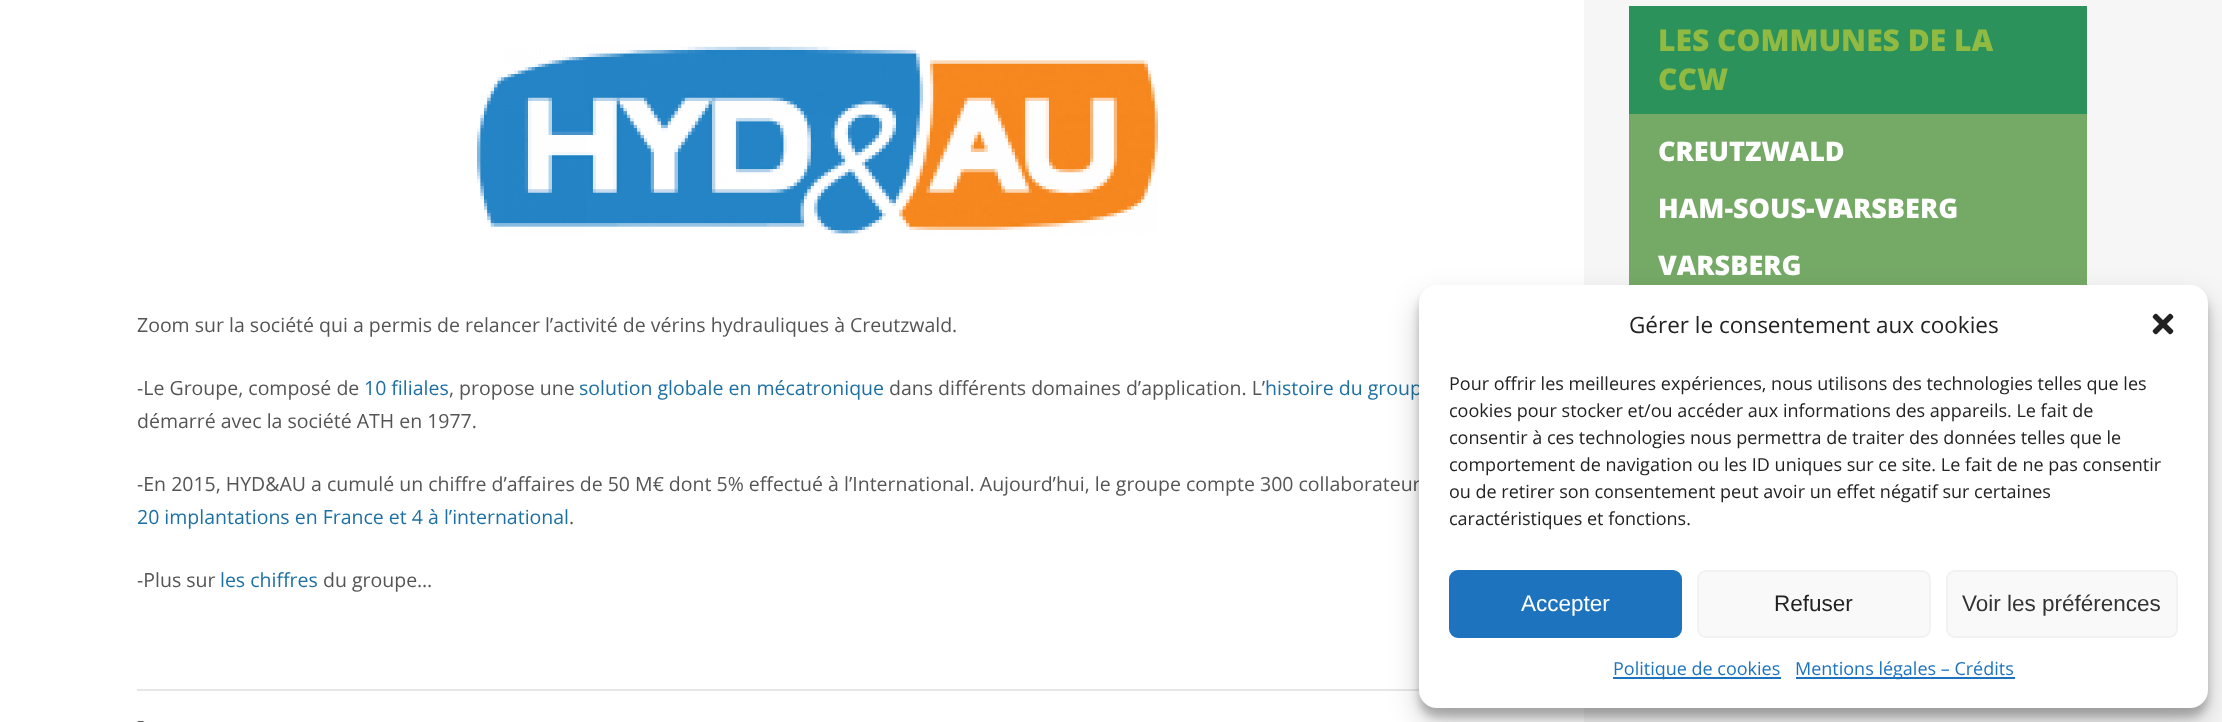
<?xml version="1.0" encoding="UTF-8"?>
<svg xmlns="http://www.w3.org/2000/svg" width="2222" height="722">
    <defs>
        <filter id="blur1" x="-50%" y="-200%" width="200%" height="500%"><feGaussianBlur stdDeviation="4.5"/></filter>
        <filter id="blur2" x="-50%" y="-200%" width="200%" height="500%"><feGaussianBlur stdDeviation="15"/></filter>
    </defs>
    <rect width="100%" height="100%" fill="#FFFFFF"/>
    <rect x="1584" y="0" width="638" height="722" fill="#F6F6F6"/>
    <rect x="1629" y="6" width="458" height="108" fill="#2C925B"/>
    <text font-family="Open Sans" font-size="30" font-weight="800" fill="#90BA42">
        <tspan x="1658" y="51">LES COMMUNES DE LA</tspan>
        <tspan x="1658" y="90">CCW</tspan>
    </text>
    <rect x="1629" y="114" width="458" height="171" fill="#75A966"/>
    <text x="1658" y="161" font-family="Open Sans" font-size="27" font-weight="800" fill="#FFFFFF">CREUTZWALD</text>
    <text x="1658" y="218" font-family="Open Sans" font-size="27" font-weight="800" fill="#FFFFFF">HAM-SOUS-VARSBERG</text>
    <text x="1658" y="275" font-family="Open Sans" font-size="27" font-weight="800" fill="#FFFFFF">VARSBERG</text>
    <image x="477" y="46" width="681" height="188" href="img_01.png"/>
    <text x="137" y="332" font-family="Open Sans" font-size="19.5" fill="#555555">Zoom sur la société qui a permis de relancer l’activité de vérins hydrauliques à Creutzwald.</text>
    <text x="137" y="395" font-family="Open Sans" font-size="19.5" fill="#555555">-Le Groupe, composé de</text>
    <text x="364" y="395" font-family="Open Sans" font-size="19.5" fill="#1D70A3">10 filiales</text>
    <text x="449" y="395" font-family="Open Sans" font-size="19.5" fill="#555555">, propose une</text>
    <text x="579" y="395" font-family="Open Sans" font-size="19.5" fill="#1D70A3">solution globale en mécatronique</text>
    <text x="889" y="395" font-family="Open Sans" font-size="19.5" fill="#555555">dans différents domaines d’application. L’</text>
    <text x="1265" y="395" font-family="Open Sans" font-size="19.5" fill="#1D70A3">histoire du group</text>
    <text x="137" y="428" font-family="Open Sans" font-size="19.5" fill="#555555">démarré avec la société ATH en 1977.</text>
    <text x="137" y="491" font-family="Open Sans" font-size="19.5" fill="#555555">-En 2015, HYD&amp;AU a cumulé un chiffre d’affaires de 50 M€ dont 5% effectué à l’International. Aujourd’hui, le groupe compte 300 collaborateur</text>
    <text x="137" y="524" font-family="Open Sans" font-size="19.5" fill="#1D70A3">20 implantations en France et 4 à l’international</text>
    <text x="569" y="524" font-family="Open Sans" font-size="19.5" fill="#555555">.</text>
    <text x="137" y="587" font-family="Open Sans" font-size="19.5" fill="#555555">-Plus sur</text>
    <text x="220" y="587" font-family="Open Sans" font-size="19.5" fill="#1D70A3">les chiffres</text>
    <text x="323" y="587" font-family="Open Sans" font-size="19.5" fill="#555555">du groupe…</text>
    <rect x="137" y="689" width="1283" height="2" fill="#E6E6E6"/>
    <image x="137" y="721" width="8" height="1" href="img_02.png"/>
    <rect x="1419" y="294" width="789" height="423" rx="18" fill="#000000" fill-opacity="0.23" filter="url(#blur1)"/>
    <rect x="1419" y="300" width="789" height="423" rx="18" fill="#000000" fill-opacity="0.19" filter="url(#blur2)"/>
    <rect x="1419" y="285" width="789" height="423" rx="18" fill="#FFFFFF"/>
    <text x="1629" y="333" font-family="Open Sans" font-size="22.5" fill="#222222">Gérer le consentement aux cookies</text>
    <image x="2152" y="313" width="22" height="22" href="img_03.png"/>
    <text font-family="Open Sans" font-size="18" fill="#222222">
        <tspan x="1449" y="390">Pour offrir les meilleures expériences, nous utilisons des technologies telles que les</tspan>
        <tspan x="1449" y="417">cookies pour stocker et/ou accéder aux informations des appareils. Le fait de</tspan>
        <tspan x="1449" y="444">consentir à ces technologies nous permettra de traiter des données telles que le</tspan>
        <tspan x="1449" y="471">comportement de navigation ou les ID uniques sur ce site. Le fait de ne pas consentir</tspan>
        <tspan x="1449" y="498">ou de retirer son consentement peut avoir un effet négatif sur certaines</tspan>
        <tspan x="1449" y="525">caractéristiques et fonctions.</tspan>
    </text>
    <rect x="1450" y="571" width="231" height="66" rx="8" fill="#1E73BE" stroke="#1E73BE" stroke-width="2"/>
    <text x="1521" y="611" font-family="Liberation Sans" font-size="22.5" fill="#FFFFFF">Accepter</text>
    <rect x="1698" y="571" width="232" height="66" rx="8" fill="#F9F9F9" stroke="#F2F2F2" stroke-width="2"/>
    <text x="1774" y="611" font-family="Liberation Sans" font-size="22.5" fill="#222222">Refuser</text>
    <rect x="1947" y="571" width="230" height="66" rx="8" fill="#F9F9F9" stroke="#F2F2F2" stroke-width="2"/>
    <text x="1962" y="611" font-family="Liberation Sans" font-size="22.5" fill="#333333">Voir les préférences</text>
    <rect x="1613" y="677" width="168" height="2" fill="#1E73BE"/>
    <text x="1613" y="675" font-family="Open Sans" font-size="18" fill="#1E73BE">Politique de cookies</text>
    <rect x="1796" y="677" width="219" height="2" fill="#1E73BE"/>
    <text x="1795" y="675" font-family="Open Sans" font-size="18" fill="#1E73BE">Mentions légales – Crédits</text>
</svg>
